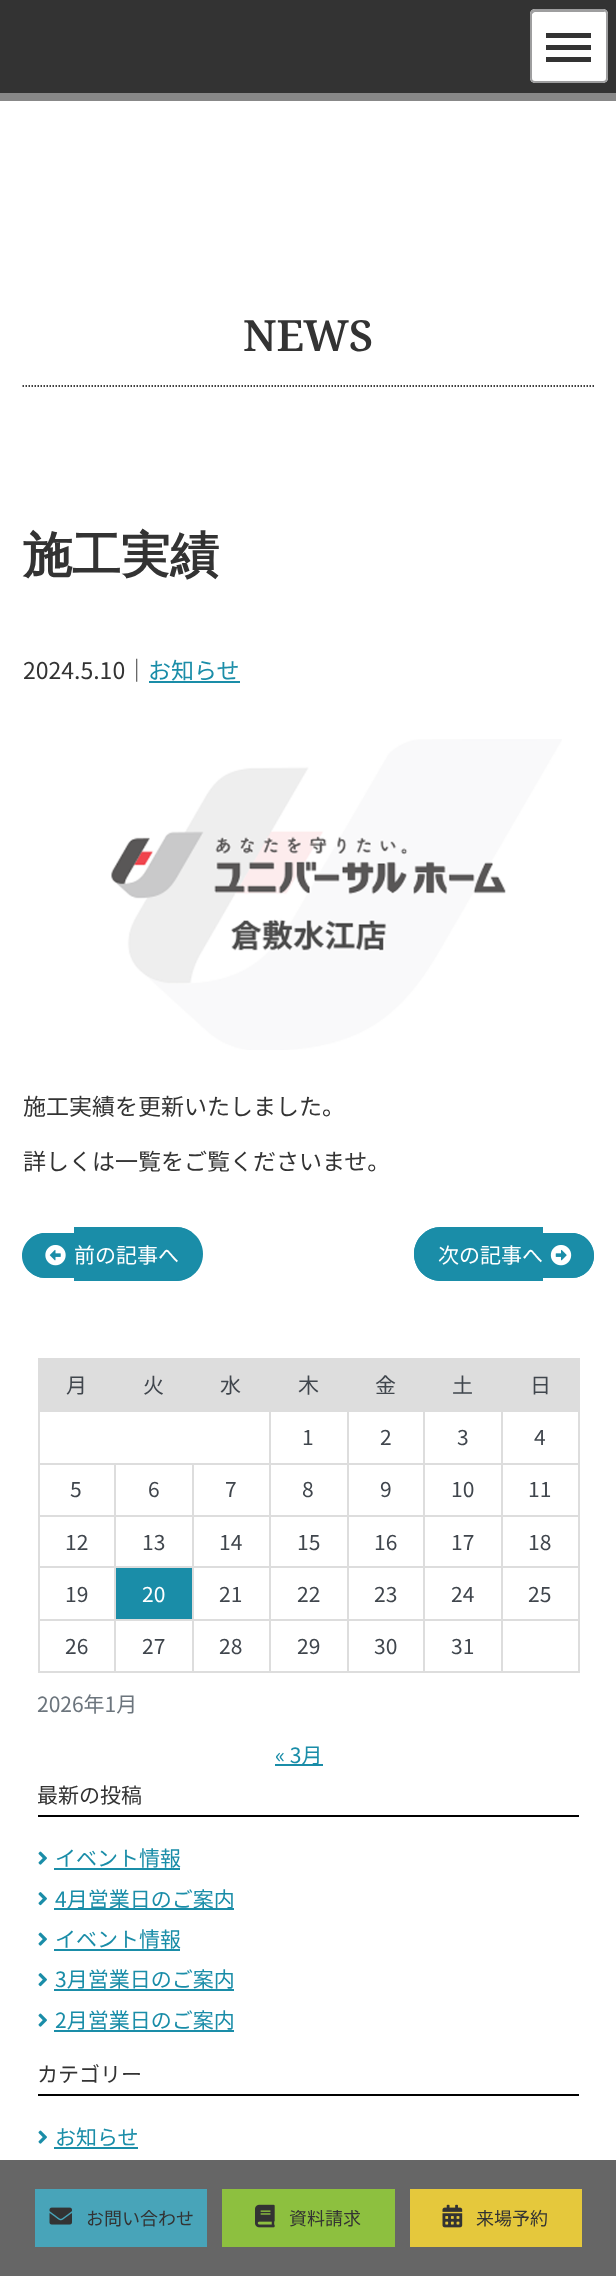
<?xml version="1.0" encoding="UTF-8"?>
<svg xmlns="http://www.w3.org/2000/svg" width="616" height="2276">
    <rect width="100%" height="100%" fill="#FFFFFF"/>
    <rect x="0" y="0" width="616" height="93" fill="#333333"/>
    <rect x="530" y="9" width="78" height="74" rx="5" fill="#FFFFFF"/>
    <path d="M 536 12 H 605 C 605 11 604 11 603 11 H 534 C 532 11 531 12 531 14 V 78 C 531 79 531 80 532 80 V 26 C 532 22 529 12 536 12 Z" fill="#9E9E9F"/>
    <rect x="531" y="10" width="76" height="72" rx="4" fill="none" stroke="#9E9E9F" stroke-width="2"/>
    <rect x="546" y="33" width="45" height="5" fill="#333333"/>
    <rect x="546" y="45" width="45" height="5" fill="#333333"/>
    <rect x="546" y="57" width="45" height="5" fill="#333333"/>
    <rect x="0" y="93" width="616" height="8" fill="#888888"/>
    <path d="M 22.5 386 H 594" fill="none" stroke="#000000" stroke-width="1.5" stroke-dasharray="1.5 1.5"/>
    <text x="243" y="351" font-family="Noto Serif" font-size="43" font-weight="600" fill="#333333">NEWS</text>
    <text x="23" y="572" font-family="WenQuanYi Zen Hei" font-size="49" font-weight="700" fill="#333333">施工実績</text>
    <text x="23" y="679" font-family="Noto Sans JP" font-size="23" fill="#333333">2024.5.10｜</text>
    <text x="148" y="679" font-family="Noto Sans JP" font-size="23" fill="#1A8DA8">お知らせ</text>
    <rect x="149" y="681" width="91" height="2" fill="#1A8DA8"/>
    <image x="111" y="739" width="451" height="311" href="img_01.png"/>
    <text x="23" y="1115" font-family="Noto Sans JP" font-size="23" fill="#333333">施工実績を更新いたしました。</text>
    <text x="23" y="1170" font-family="Noto Sans JP" font-size="23" fill="#333333">詳しくは一覧をご覧くださいませ。</text>
    <path d="M 45.5 1233 H 74 V 1278 H 45.5 C 33 1278 23 1268 23 1255.5 C 23 1243 33 1233 45.5 1233 Z" fill="#1A8DA8"/>
    <path d="M 45 1233 H 74 V 1278 H 45 C 33 1278 22 1268 22 1256 C 22 1243 33 1233 45 1233 Z M 45 1234 H 74 V 1276 H 45 C 33 1276 24 1267 24 1256 C 24 1244 33 1234 45 1234 Z" fill="#1A8DA8" fill-rule="evenodd"/>
    <path d="M 74 1227 H 176 C 191 1227 203 1239 203 1254 C 203 1269 191 1281 176 1281 H 74 Z" fill="#1A8DA8"/>
    <path d="M 74 1227 H 176 C 190 1227 202 1239 202 1254 C 202 1269 190 1281 176 1281 H 74 Z M 74 1228 H 176 C 190 1228 201 1240 201 1254 C 201 1268 190 1280 176 1280 H 74 Z" fill="#1A8DA8" fill-rule="evenodd"/>
    <image x="45" y="1245" width="21" height="21" href="img_02.png"/>
    <text x="74" y="1263" font-family="Noto Sans JP" font-size="21" fill="#FFFFFF">前の記事へ</text>
    <path d="M 441 1227 H 543 V 1281 H 441 C 426 1281 414 1269 414 1254 C 414 1239 426 1227 441 1227 Z" fill="#1A8DA8"/>
    <path d="M 441 1227 H 543 V 1281 H 441 C 426 1281 414 1269 414 1254 C 414 1239 426 1227 441 1227 Z M 441 1228 H 543 V 1280 H 441 C 427 1280 416 1268 416 1254 C 416 1240 427 1228 441 1228 Z" fill="#1A8DA8" fill-rule="evenodd"/>
    <path d="M 543 1233 H 571.5 C 584 1233 594 1243 594 1255.5 C 594 1268 584 1278 571.5 1278 H 543 Z" fill="#1A8DA8"/>
    <path d="M 543 1233 H 572 C 584 1233 594 1243 594 1256 C 594 1268 584 1278 572 1278 H 543 Z M 543 1234 H 572 C 583 1234 592 1244 592 1256 C 592 1267 583 1276 572 1276 H 543 Z" fill="#1A8DA8" fill-rule="evenodd"/>
    <text x="438" y="1263" font-family="Noto Sans JP" font-size="21" fill="#FFFFFF">次の記事へ</text>
    <image x="550" y="1245" width="22" height="21" href="img_03.png"/>
    <rect x="38" y="1358" width="540" height="52" fill="#DDDDDD"/>
    <text x="66" y="1393" font-family="Noto Sans JP" font-size="21" fill="#40464D">月</text>
    <text x="143" y="1393" font-family="Noto Sans JP" font-size="21" fill="#40464D">火</text>
    <text x="220" y="1393" font-family="Noto Sans JP" font-size="21" fill="#40464D">水</text>
    <text x="298" y="1393" font-family="Noto Sans JP" font-size="21" fill="#40464D">木</text>
    <text x="375" y="1393" font-family="Noto Sans JP" font-size="21" fill="#40464D">金</text>
    <text x="452" y="1393" font-family="Noto Sans JP" font-size="21" fill="#40464D">土</text>
    <text x="530" y="1393" font-family="Noto Sans JP" font-size="21" fill="#40464D">日</text>
    <rect x="501" y="1410" width="78" height="2" fill="#DDDDDD"/>
    <rect x="501" y="1463" width="78" height="2" fill="#DDDDDD"/>
    <rect x="501" y="1515" width="78" height="2" fill="#DDDDDD"/>
    <rect x="501" y="1566" width="78" height="2" fill="#DDDDDD"/>
    <rect x="501" y="1619" width="78" height="2" fill="#DDDDDD"/>
    <rect x="578" y="1619" width="2" height="54" fill="#DDDDDD"/>
    <rect x="501" y="1671" width="78" height="2" fill="#DDDDDD"/>
    <rect x="501" y="1619" width="2" height="54" fill="#DDDDDD"/>
    <rect x="423" y="1619" width="80" height="2" fill="#DDDDDD"/>
    <rect x="501" y="1566" width="2" height="54" fill="#DDDDDD"/>
    <rect x="423" y="1566" width="80" height="2" fill="#DDDDDD"/>
    <rect x="501" y="1515" width="2" height="53" fill="#DDDDDD"/>
    <rect x="423" y="1515" width="80" height="2" fill="#DDDDDD"/>
    <rect x="501" y="1463" width="2" height="54" fill="#DDDDDD"/>
    <rect x="423" y="1463" width="80" height="2" fill="#DDDDDD"/>
    <rect x="501" y="1410" width="2" height="54" fill="#DDDDDD"/>
    <rect x="423" y="1410" width="80" height="2" fill="#DDDDDD"/>
    <rect x="423" y="1671" width="80" height="2" fill="#DDDDDD"/>
    <rect x="423" y="1619" width="2" height="54" fill="#DDDDDD"/>
    <rect x="347" y="1619" width="78" height="2" fill="#DDDDDD"/>
    <rect x="423" y="1566" width="2" height="54" fill="#DDDDDD"/>
    <rect x="347" y="1566" width="78" height="2" fill="#DDDDDD"/>
    <rect x="423" y="1515" width="2" height="53" fill="#DDDDDD"/>
    <rect x="347" y="1515" width="78" height="2" fill="#DDDDDD"/>
    <rect x="423" y="1463" width="2" height="54" fill="#DDDDDD"/>
    <rect x="347" y="1463" width="78" height="2" fill="#DDDDDD"/>
    <rect x="423" y="1410" width="2" height="54" fill="#DDDDDD"/>
    <rect x="347" y="1410" width="78" height="2" fill="#DDDDDD"/>
    <rect x="347" y="1671" width="78" height="2" fill="#DDDDDD"/>
    <rect x="347" y="1619" width="2" height="54" fill="#DDDDDD"/>
    <rect x="269" y="1619" width="79" height="2" fill="#DDDDDD"/>
    <rect x="347" y="1566" width="2" height="54" fill="#DDDDDD"/>
    <rect x="269" y="1566" width="79" height="2" fill="#DDDDDD"/>
    <rect x="347" y="1515" width="2" height="53" fill="#DDDDDD"/>
    <rect x="269" y="1515" width="79" height="2" fill="#DDDDDD"/>
    <rect x="347" y="1463" width="2" height="54" fill="#DDDDDD"/>
    <rect x="269" y="1463" width="79" height="2" fill="#DDDDDD"/>
    <rect x="347" y="1410" width="2" height="54" fill="#DDDDDD"/>
    <rect x="269" y="1410" width="79" height="2" fill="#DDDDDD"/>
    <rect x="269" y="1671" width="79" height="2" fill="#DDDDDD"/>
    <rect x="269" y="1619" width="2" height="54" fill="#DDDDDD"/>
    <rect x="192" y="1619" width="78" height="2" fill="#DDDDDD"/>
    <rect x="269" y="1566" width="2" height="54" fill="#DDDDDD"/>
    <rect x="192" y="1566" width="78" height="2" fill="#DDDDDD"/>
    <rect x="269" y="1515" width="2" height="53" fill="#DDDDDD"/>
    <rect x="192" y="1515" width="78" height="2" fill="#DDDDDD"/>
    <rect x="269" y="1463" width="2" height="54" fill="#DDDDDD"/>
    <rect x="192" y="1463" width="78" height="2" fill="#DDDDDD"/>
    <rect x="269" y="1410" width="2" height="54" fill="#DDDDDD"/>
    <rect x="38" y="1410" width="232" height="2" fill="#DDDDDD"/>
    <rect x="192" y="1671" width="78" height="2" fill="#DDDDDD"/>
    <rect x="192" y="1619" width="2" height="54" fill="#DDDDDD"/>
    <rect x="114" y="1619" width="80" height="2" fill="#DDDDDD"/>
    <rect x="192" y="1566" width="2" height="54" fill="#DDDDDD"/>
    <rect x="114" y="1566" width="80" height="2" fill="#DDDDDD"/>
    <rect x="192" y="1515" width="2" height="53" fill="#DDDDDD"/>
    <rect x="114" y="1515" width="80" height="2" fill="#DDDDDD"/>
    <rect x="192" y="1463" width="2" height="54" fill="#DDDDDD"/>
    <rect x="114" y="1463" width="80" height="2" fill="#DDDDDD"/>
    <rect x="114" y="1671" width="80" height="2" fill="#DDDDDD"/>
    <rect x="114" y="1619" width="2" height="54" fill="#DDDDDD"/>
    <rect x="38" y="1619" width="78" height="2" fill="#DDDDDD"/>
    <rect x="114" y="1566" width="2" height="54" fill="#DDDDDD"/>
    <rect x="38" y="1566" width="78" height="2" fill="#DDDDDD"/>
    <rect x="114" y="1515" width="2" height="53" fill="#DDDDDD"/>
    <rect x="38" y="1515" width="78" height="2" fill="#DDDDDD"/>
    <rect x="114" y="1463" width="2" height="54" fill="#DDDDDD"/>
    <rect x="38" y="1463" width="78" height="2" fill="#DDDDDD"/>
    <rect x="38" y="1671" width="78" height="2" fill="#DDDDDD"/>
    <rect x="38" y="1619" width="2" height="54" fill="#DDDDDD"/>
    <rect x="38" y="1566" width="2" height="54" fill="#DDDDDD"/>
    <rect x="38" y="1515" width="2" height="53" fill="#DDDDDD"/>
    <rect x="38" y="1463" width="2" height="54" fill="#DDDDDD"/>
    <rect x="38" y="1410" width="2" height="54" fill="#DDDDDD"/>
    <text x="302" y="1445" font-family="Noto Sans JP" font-size="21" fill="#40464D">1</text>
    <text x="380" y="1445" font-family="Noto Sans JP" font-size="21" fill="#40464D">2</text>
    <text x="457" y="1445" font-family="Noto Sans JP" font-size="21" fill="#40464D">3</text>
    <rect x="578" y="1566" width="2" height="54" fill="#DDDDDD"/>
    <rect x="578" y="1515" width="2" height="53" fill="#DDDDDD"/>
    <rect x="578" y="1463" width="2" height="54" fill="#DDDDDD"/>
    <rect x="578" y="1358" width="2" height="106" fill="#DDDDDD"/>
    <text x="534" y="1445" font-family="Noto Sans JP" font-size="21" fill="#40464D">4</text>
    <text x="70" y="1497" font-family="Noto Sans JP" font-size="21" fill="#40464D">5</text>
    <text x="148" y="1497" font-family="Noto Sans JP" font-size="21" fill="#40464D">6</text>
    <text x="225" y="1497" font-family="Noto Sans JP" font-size="21" fill="#40464D">7</text>
    <text x="302" y="1497" font-family="Noto Sans JP" font-size="21" fill="#40464D">8</text>
    <text x="380" y="1497" font-family="Noto Sans JP" font-size="21" fill="#40464D">9</text>
    <text x="451" y="1497" font-family="Noto Sans JP" font-size="21" fill="#40464D">10</text>
    <text x="528" y="1497" font-family="Noto Sans JP" font-size="21" fill="#40464D">11</text>
    <text x="65" y="1550" font-family="Noto Sans JP" font-size="21" fill="#40464D">12</text>
    <text x="142" y="1550" font-family="Noto Sans JP" font-size="21" fill="#40464D">13</text>
    <text x="219" y="1550" font-family="Noto Sans JP" font-size="21" fill="#40464D">14</text>
    <text x="297" y="1550" font-family="Noto Sans JP" font-size="21" fill="#40464D">15</text>
    <text x="374" y="1550" font-family="Noto Sans JP" font-size="21" fill="#40464D">16</text>
    <text x="451" y="1550" font-family="Noto Sans JP" font-size="21" fill="#40464D">17</text>
    <text x="528" y="1550" font-family="Noto Sans JP" font-size="21" fill="#40464D">18</text>
    <text x="65" y="1602" font-family="Noto Sans JP" font-size="21" fill="#40464D">19</text>
    <rect x="116" y="1568" width="76" height="51" fill="#1A8DA8"/>
    <text x="142" y="1602" font-family="Noto Sans JP" font-size="21" fill="#FFFFFF">20</text>
    <text x="219" y="1602" font-family="Noto Sans JP" font-size="21" fill="#40464D">21</text>
    <text x="297" y="1602" font-family="Noto Sans JP" font-size="21" fill="#40464D">22</text>
    <text x="374" y="1602" font-family="Noto Sans JP" font-size="21" fill="#40464D">23</text>
    <text x="451" y="1602" font-family="Noto Sans JP" font-size="21" fill="#40464D">24</text>
    <text x="528" y="1602" font-family="Noto Sans JP" font-size="21" fill="#40464D">25</text>
    <text x="65" y="1654" font-family="Noto Sans JP" font-size="21" fill="#40464D">26</text>
    <text x="142" y="1654" font-family="Noto Sans JP" font-size="21" fill="#40464D">27</text>
    <text x="219" y="1654" font-family="Noto Sans JP" font-size="21" fill="#40464D">28</text>
    <text x="297" y="1654" font-family="Noto Sans JP" font-size="21" fill="#40464D">29</text>
    <text x="374" y="1654" font-family="Noto Sans JP" font-size="21" fill="#40464D">30</text>
    <text x="451" y="1654" font-family="Noto Sans JP" font-size="21" fill="#40464D">31</text>
    <text x="37" y="1712" font-family="Noto Sans JP" font-size="21" fill="#6C757D">2026年1月</text>
    <rect x="275" y="1764" width="48" height="2" fill="#1A8DA8"/>
    <text x="275" y="1763" font-family="Noto Sans JP" font-size="21" fill="#1A8DA8">« 3月</text>
    <rect x="38" y="1815" width="541" height="2" fill="#000000"/>
    <text x="37" y="1803" font-family="Noto Sans JP" font-size="21" fill="#333333">最新の投稿</text>
    <image x="38" y="1851" width="9" height="14" href="img_04.png"/>
    <text x="55" y="1866" font-family="Noto Sans JP" font-size="21" fill="#1A8DA8">イベント情報</text>
    <rect x="54" y="1868" width="126" height="2" fill="#1A8DA8"/>
    <image x="38" y="1892" width="9" height="14" href="img_05.png"/>
    <rect x="54" y="1908" width="180" height="2" fill="#1A8DA8"/>
    <text x="55" y="1907" font-family="Noto Sans JP" font-size="21" fill="#1A8DA8">4月営業日のご案内</text>
    <image x="38" y="1932" width="9" height="14" href="img_04.png"/>
    <text x="55" y="1947" font-family="Noto Sans JP" font-size="21" fill="#1A8DA8">イベント情報</text>
    <rect x="54" y="1949" width="126" height="2" fill="#1A8DA8"/>
    <image x="38" y="1973" width="9" height="14" href="img_05.png"/>
    <text x="55" y="1987" font-family="Noto Sans JP" font-size="21" fill="#1A8DA8">3月営業日のご案内</text>
    <rect x="54" y="1989" width="180" height="2" fill="#1A8DA8"/>
    <image x="38" y="2013" width="9" height="14" href="img_04.png"/>
    <text x="55" y="2028" font-family="Noto Sans JP" font-size="21" fill="#1A8DA8">2月営業日のご案内</text>
    <rect x="54" y="2030" width="180" height="2" fill="#1A8DA8"/>
    <rect x="38" y="2094" width="541" height="2" fill="#000000"/>
    <text x="37" y="2082" font-family="Noto Sans JP" font-size="21" fill="#333333">カテゴリー</text>
    <image x="38" y="2130" width="9" height="14" href="img_04.png"/>
    <text x="55" y="2145" font-family="Noto Sans JP" font-size="21" fill="#1A8DA8">お知らせ</text>
    <rect x="54" y="2147" width="84" height="2" fill="#1A8DA8"/>
    <rect x="0" y="2160" width="616" height="116" fill="#666666"/>
    <rect x="35" y="2189" width="172" height="58" fill="#48A4B9"/>
    <image x="49" y="2207" width="23" height="18" href="img_06.png"/>
    <text x="86" y="2225" font-family="Noto Sans JP" font-size="18" fill="#333333">お問い合わせ</text>
    <rect x="222" y="2189" width="173" height="58" fill="#8DC03F"/>
    <image x="255" y="2204" width="20" height="24" href="img_07.png"/>
    <text x="289" y="2225" font-family="Noto Sans JP" font-size="18" fill="#333333">資料請求</text>
    <rect x="410" y="2189" width="172" height="58" fill="#E5C83C"/>
    <image x="442" y="2204" width="21" height="24" href="img_08.png"/>
    <text x="476" y="2225" font-family="Noto Sans JP" font-size="18" fill="#333333">来場予約</text>
</svg>
